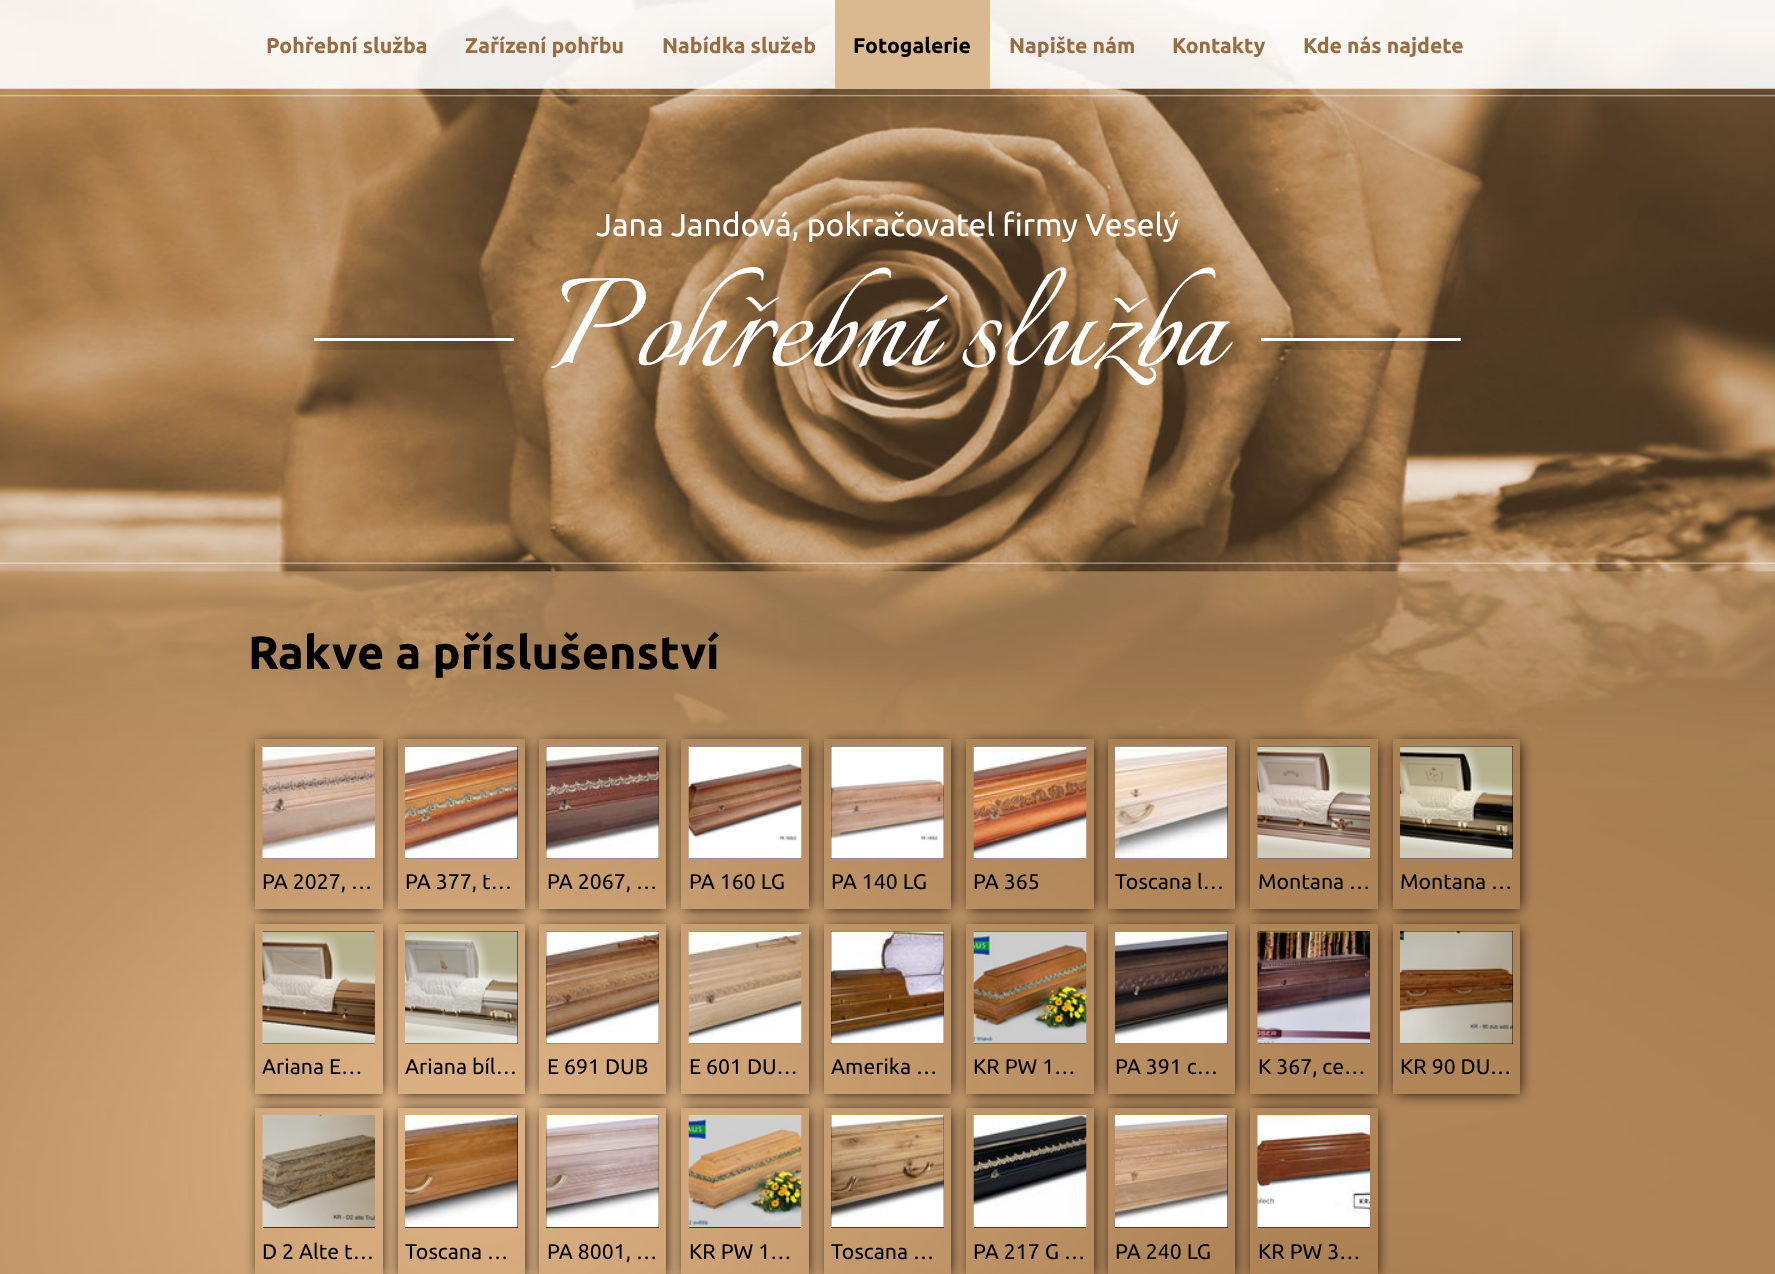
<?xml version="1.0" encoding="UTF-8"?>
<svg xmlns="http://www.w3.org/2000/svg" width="1775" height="1274">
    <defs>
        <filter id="blur1" x="-50%" y="-200%" width="200%" height="500%"><feGaussianBlur stdDeviation="9.5"/></filter>
        <clipPath id="clip1"><path d="M 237 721 H 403 V 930 H 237 Z M 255 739 H 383 V 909 H 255 Z" clip-rule="evenodd"/></clipPath>
        <filter id="blur2" x="-50%" y="-200%" width="200%" height="500%"><feGaussianBlur stdDeviation="7"/></filter>
        <clipPath id="clip2"><path d="M 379 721 H 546 V 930 H 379 Z M 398 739 H 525 V 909 H 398 Z" clip-rule="evenodd"/></clipPath>
        <clipPath id="clip3"><path d="M 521 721 H 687 V 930 H 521 Z M 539 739 H 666 V 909 H 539 Z" clip-rule="evenodd"/></clipPath>
        <clipPath id="clip4"><path d="M 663 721 H 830 V 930 H 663 Z M 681 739 H 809 V 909 H 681 Z" clip-rule="evenodd"/></clipPath>
        <clipPath id="clip5"><path d="M 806 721 H 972 V 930 H 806 Z M 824 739 H 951 V 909 H 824 Z" clip-rule="evenodd"/></clipPath>
        <clipPath id="clip6"><path d="M 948 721 H 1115 V 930 H 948 Z M 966 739 H 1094 V 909 H 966 Z" clip-rule="evenodd"/></clipPath>
        <clipPath id="clip7"><path d="M 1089 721 H 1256 V 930 H 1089 Z M 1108 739 H 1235 V 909 H 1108 Z" clip-rule="evenodd"/></clipPath>
        <clipPath id="clip8"><path d="M 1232 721 H 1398 V 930 H 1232 Z M 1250 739 H 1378 V 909 H 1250 Z" clip-rule="evenodd"/></clipPath>
        <clipPath id="clip9"><path d="M 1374 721 H 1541 V 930 H 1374 Z M 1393 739 H 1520 V 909 H 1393 Z" clip-rule="evenodd"/></clipPath>
        <clipPath id="clip10"><path d="M 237 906 H 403 V 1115 H 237 Z M 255 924 H 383 V 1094 H 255 Z" clip-rule="evenodd"/></clipPath>
        <clipPath id="clip11"><path d="M 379 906 H 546 V 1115 H 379 Z M 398 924 H 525 V 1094 H 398 Z" clip-rule="evenodd"/></clipPath>
        <clipPath id="clip12"><path d="M 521 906 H 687 V 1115 H 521 Z M 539 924 H 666 V 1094 H 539 Z" clip-rule="evenodd"/></clipPath>
        <clipPath id="clip13"><path d="M 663 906 H 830 V 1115 H 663 Z M 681 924 H 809 V 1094 H 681 Z" clip-rule="evenodd"/></clipPath>
        <clipPath id="clip14"><path d="M 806 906 H 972 V 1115 H 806 Z M 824 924 H 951 V 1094 H 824 Z" clip-rule="evenodd"/></clipPath>
        <clipPath id="clip15"><path d="M 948 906 H 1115 V 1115 H 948 Z M 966 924 H 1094 V 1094 H 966 Z" clip-rule="evenodd"/></clipPath>
        <clipPath id="clip16"><path d="M 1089 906 H 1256 V 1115 H 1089 Z M 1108 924 H 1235 V 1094 H 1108 Z" clip-rule="evenodd"/></clipPath>
        <clipPath id="clip17"><path d="M 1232 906 H 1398 V 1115 H 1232 Z M 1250 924 H 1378 V 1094 H 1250 Z" clip-rule="evenodd"/></clipPath>
        <clipPath id="clip18"><path d="M 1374 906 H 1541 V 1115 H 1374 Z M 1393 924 H 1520 V 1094 H 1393 Z" clip-rule="evenodd"/></clipPath>
        <clipPath id="clip19"><path d="M 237 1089 H 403 V 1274 H 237 Z M 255 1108 H 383 V 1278 H 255 Z" clip-rule="evenodd"/></clipPath>
        <clipPath id="clip20"><path d="M 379 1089 H 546 V 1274 H 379 Z M 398 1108 H 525 V 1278 H 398 Z" clip-rule="evenodd"/></clipPath>
        <clipPath id="clip21"><path d="M 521 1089 H 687 V 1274 H 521 Z M 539 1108 H 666 V 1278 H 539 Z" clip-rule="evenodd"/></clipPath>
        <clipPath id="clip22"><path d="M 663 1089 H 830 V 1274 H 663 Z M 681 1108 H 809 V 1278 H 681 Z" clip-rule="evenodd"/></clipPath>
        <clipPath id="clip23"><path d="M 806 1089 H 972 V 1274 H 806 Z M 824 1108 H 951 V 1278 H 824 Z" clip-rule="evenodd"/></clipPath>
        <clipPath id="clip24"><path d="M 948 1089 H 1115 V 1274 H 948 Z M 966 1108 H 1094 V 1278 H 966 Z" clip-rule="evenodd"/></clipPath>
        <clipPath id="clip25"><path d="M 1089 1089 H 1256 V 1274 H 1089 Z M 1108 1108 H 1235 V 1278 H 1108 Z" clip-rule="evenodd"/></clipPath>
        <clipPath id="clip26"><path d="M 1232 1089 H 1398 V 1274 H 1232 Z M 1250 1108 H 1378 V 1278 H 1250 Z" clip-rule="evenodd"/></clipPath>
    </defs>
    <rect width="100%" height="100%" fill="#FFFFFF"/>
    <image x="0" y="0" width="1775" height="1274" href="img_01.png"/>
    <text x="266" y="53" font-family="Ubuntu" font-size="21.25" font-weight="700" fill="#976D43">Pohřební služba</text>
    <text x="465" y="53" font-family="Ubuntu" font-size="21.25" font-weight="700" fill="#976D43">Zařízení pohřbu</text>
    <text x="662" y="53" font-family="Ubuntu" font-size="21.25" font-weight="700" fill="#976D43">Nabídka služeb</text>
    <rect x="835" y="0" width="155" height="89" fill="#DAB990"/>
    <text x="853" y="53" font-family="Ubuntu" font-size="21.25" font-weight="700" fill="#000000">Fotogalerie</text>
    <text x="1009" y="53" font-family="Ubuntu" font-size="21.25" font-weight="700" fill="#976D43">Napište nám</text>
    <text x="1172" y="53" font-family="Ubuntu" font-size="21.25" font-weight="700" fill="#976D43">Kontakty</text>
    <text x="1303" y="53" font-family="Ubuntu" font-size="21.25" font-weight="700" fill="#976D43">Kde nás najdete</text>
    <text x="596" y="236" font-family="Ubuntu" font-size="31.9" fill="#FFFFFF">Jana Jandová, pokračovatel firmy Veselý</text>
    <rect x="314" y="341" width="200" height="3" fill="#000000" filter="url(#blur1)"/>
    <rect x="314" y="338" width="200" height="3" fill="#FFFFFF"/>
    <text x="551" y="365" font-family="Italianno" font-size="159.5" fill="#FFFFFF">Pohřební služba</text>
    <rect x="1261" y="341" width="200" height="3" fill="#000000" filter="url(#blur1)"/>
    <rect x="1261" y="338" width="200" height="3" fill="#FFFFFF"/>
    <text x="248" y="669" font-family="Ubuntu" font-size="46.75" font-weight="700" fill="#000000">Rakve a příslušenství</text>
    <g clip-path="url(#clip1)">
        <rect x="259" y="743" width="122" height="165" fill="#000000" filter="url(#blur2)"/>
    </g>
    <rect x="263" y="746" width="112" height="113" fill="#000000"/>
    <image x="262" y="746" width="113" height="113" href="img_02.png"/>
    <text x="262" y="889" font-family="Ubuntu" font-size="21.25" fill="#000000">PA 2027, …</text>
    <g clip-path="url(#clip2)">
        <rect x="401" y="743" width="123" height="165" fill="#000000" filter="url(#blur2)"/>
    </g>
    <rect x="405" y="746" width="113" height="113" fill="#000000"/>
    <image x="405" y="746" width="113" height="113" href="img_03.png"/>
    <text x="405" y="889" font-family="Ubuntu" font-size="21.25" fill="#000000">PA 377, t…</text>
    <g clip-path="url(#clip3)">
        <rect x="543" y="743" width="122" height="165" fill="#000000" filter="url(#blur2)"/>
    </g>
    <rect x="546" y="746" width="113" height="113" fill="#000000"/>
    <image x="546" y="746" width="113" height="113" href="img_04.png"/>
    <text x="547" y="889" font-family="Ubuntu" font-size="21.25" fill="#000000">PA 2067, …</text>
    <g clip-path="url(#clip4)">
        <rect x="685" y="743" width="123" height="165" fill="#000000" filter="url(#blur2)"/>
    </g>
    <rect x="689" y="746" width="112" height="113" fill="#000000"/>
    <image x="688" y="746" width="114" height="113" href="img_05.png"/>
    <text x="689" y="889" font-family="Ubuntu" font-size="21.25" fill="#000000">PA 160 LG</text>
    <g clip-path="url(#clip5)">
        <rect x="828" y="743" width="122" height="165" fill="#000000" filter="url(#blur2)"/>
    </g>
    <rect x="831" y="746" width="113" height="113" fill="#000000"/>
    <image x="831" y="746" width="113" height="113" href="img_06.png"/>
    <text x="831" y="889" font-family="Ubuntu" font-size="21.25" fill="#000000">PA 140 LG</text>
    <g clip-path="url(#clip6)">
        <rect x="970" y="743" width="123" height="165" fill="#000000" filter="url(#blur2)"/>
    </g>
    <rect x="974" y="746" width="112" height="113" fill="#000000"/>
    <image x="973" y="746" width="114" height="113" href="img_07.png"/>
    <text x="973" y="889" font-family="Ubuntu" font-size="21.25" fill="#000000">PA 365</text>
    <g clip-path="url(#clip7)">
        <rect x="1111" y="743" width="123" height="165" fill="#000000" filter="url(#blur2)"/>
    </g>
    <rect x="1115" y="746" width="113" height="113" fill="#000000"/>
    <image x="1115" y="746" width="113" height="113" href="img_08.png"/>
    <text x="1115" y="889" font-family="Ubuntu" font-size="21.25" fill="#000000">Toscana l…</text>
    <g clip-path="url(#clip8)">
        <rect x="1254" y="743" width="122" height="165" fill="#000000" filter="url(#blur2)"/>
    </g>
    <rect x="1258" y="746" width="112" height="113" fill="#000000"/>
    <image x="1257" y="746" width="113" height="113" href="img_09.png"/>
    <text x="1258" y="889" font-family="Ubuntu" font-size="21.25" fill="#000000">Montana …</text>
    <g clip-path="url(#clip9)">
        <rect x="1396" y="743" width="123" height="165" fill="#000000" filter="url(#blur2)"/>
    </g>
    <rect x="1400" y="746" width="113" height="113" fill="#000000"/>
    <image x="1400" y="746" width="113" height="113" href="img_10.png"/>
    <text x="1400" y="889" font-family="Ubuntu" font-size="21.25" fill="#000000">Montana …</text>
    <g clip-path="url(#clip10)">
        <rect x="259" y="928" width="122" height="165" fill="#000000" filter="url(#blur2)"/>
    </g>
    <rect x="263" y="931" width="112" height="113" fill="#000000"/>
    <image x="262" y="931" width="113" height="113" href="img_11.png"/>
    <text x="262" y="1074" font-family="Ubuntu" font-size="21.25" fill="#000000">Ariana E…</text>
    <g clip-path="url(#clip11)">
        <rect x="401" y="928" width="123" height="165" fill="#000000" filter="url(#blur2)"/>
    </g>
    <rect x="405" y="931" width="113" height="113" fill="#000000"/>
    <image x="405" y="931" width="113" height="113" href="img_12.png"/>
    <text x="405" y="1074" font-family="Ubuntu" font-size="21.25" fill="#000000">Ariana bíl…</text>
    <g clip-path="url(#clip12)">
        <rect x="543" y="928" width="122" height="165" fill="#000000" filter="url(#blur2)"/>
    </g>
    <rect x="546" y="931" width="113" height="113" fill="#000000"/>
    <image x="546" y="931" width="113" height="113" href="img_13.png"/>
    <text x="547" y="1074" font-family="Ubuntu" font-size="21.25" fill="#000000">E 691 DUB</text>
    <g clip-path="url(#clip13)">
        <rect x="685" y="928" width="123" height="165" fill="#000000" filter="url(#blur2)"/>
    </g>
    <rect x="689" y="931" width="112" height="113" fill="#000000"/>
    <image x="688" y="931" width="114" height="113" href="img_14.png"/>
    <text x="689" y="1074" font-family="Ubuntu" font-size="21.25" fill="#000000">E 601 DU…</text>
    <g clip-path="url(#clip14)">
        <rect x="828" y="928" width="122" height="165" fill="#000000" filter="url(#blur2)"/>
    </g>
    <rect x="831" y="931" width="113" height="113" fill="#000000"/>
    <image x="831" y="931" width="113" height="113" href="img_15.png"/>
    <text x="831" y="1074" font-family="Ubuntu" font-size="21.25" fill="#000000">Amerika …</text>
    <g clip-path="url(#clip15)">
        <rect x="970" y="928" width="123" height="165" fill="#000000" filter="url(#blur2)"/>
    </g>
    <rect x="974" y="931" width="112" height="113" fill="#000000"/>
    <image x="973" y="931" width="114" height="113" href="img_16.png"/>
    <text x="973" y="1074" font-family="Ubuntu" font-size="21.25" fill="#000000">KR PW 1…</text>
    <g clip-path="url(#clip16)">
        <rect x="1111" y="928" width="123" height="165" fill="#000000" filter="url(#blur2)"/>
    </g>
    <rect x="1115" y="931" width="113" height="113" fill="#000000"/>
    <image x="1115" y="931" width="113" height="113" href="img_17.png"/>
    <text x="1115" y="1074" font-family="Ubuntu" font-size="21.25" fill="#000000">PA 391 c…</text>
    <g clip-path="url(#clip17)">
        <rect x="1254" y="928" width="122" height="165" fill="#000000" filter="url(#blur2)"/>
    </g>
    <rect x="1258" y="931" width="112" height="113" fill="#000000"/>
    <image x="1257" y="931" width="113" height="113" href="img_18.png"/>
    <text x="1258" y="1074" font-family="Ubuntu" font-size="21.25" fill="#000000">K 367, ce…</text>
    <g clip-path="url(#clip18)">
        <rect x="1396" y="928" width="123" height="165" fill="#000000" filter="url(#blur2)"/>
    </g>
    <rect x="1400" y="931" width="113" height="113" fill="#000000"/>
    <image x="1400" y="931" width="113" height="113" href="img_19.png"/>
    <text x="1400" y="1074" font-family="Ubuntu" font-size="21.25" fill="#000000">KR 90 DU…</text>
    <g clip-path="url(#clip19)">
        <rect x="259" y="1111" width="122" height="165" fill="#000000" filter="url(#blur2)"/>
    </g>
    <rect x="263" y="1227" width="112" height="1" fill="#000000"/>
    <image x="262" y="1115" width="113" height="113" href="img_20.png"/>
    <text x="262" y="1259" font-family="Ubuntu" font-size="21.25" fill="#000000">D 2 Alte t…</text>
    <g clip-path="url(#clip20)">
        <rect x="401" y="1111" width="123" height="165" fill="#000000" filter="url(#blur2)"/>
    </g>
    <rect x="405" y="1115" width="113" height="113" fill="#000000"/>
    <image x="405" y="1115" width="113" height="113" href="img_21.png"/>
    <text x="405" y="1259" font-family="Ubuntu" font-size="21.25" fill="#000000">Toscana …</text>
    <g clip-path="url(#clip21)">
        <rect x="543" y="1111" width="122" height="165" fill="#000000" filter="url(#blur2)"/>
    </g>
    <rect x="546" y="1115" width="113" height="113" fill="#000000"/>
    <image x="546" y="1115" width="113" height="113" href="img_22.png"/>
    <text x="547" y="1259" font-family="Ubuntu" font-size="21.25" fill="#000000">PA 8001, …</text>
    <g clip-path="url(#clip22)">
        <rect x="685" y="1111" width="123" height="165" fill="#000000" filter="url(#blur2)"/>
    </g>
    <rect x="689" y="1227" width="112" height="1" fill="#000000"/>
    <image x="688" y="1115" width="114" height="113" href="img_23.png"/>
    <text x="689" y="1259" font-family="Ubuntu" font-size="21.25" fill="#000000">KR PW 1…</text>
    <g clip-path="url(#clip23)">
        <rect x="828" y="1111" width="122" height="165" fill="#000000" filter="url(#blur2)"/>
    </g>
    <rect x="831" y="1115" width="113" height="113" fill="#000000"/>
    <image x="831" y="1115" width="113" height="113" href="img_24.png"/>
    <text x="831" y="1259" font-family="Ubuntu" font-size="21.25" fill="#000000">Toscana …</text>
    <g clip-path="url(#clip24)">
        <rect x="970" y="1111" width="123" height="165" fill="#000000" filter="url(#blur2)"/>
    </g>
    <rect x="974" y="1227" width="112" height="1" fill="#000000"/>
    <image x="973" y="1115" width="114" height="113" href="img_25.png"/>
    <text x="973" y="1259" font-family="Ubuntu" font-size="21.25" fill="#000000">PA 217 G …</text>
    <g clip-path="url(#clip25)">
        <rect x="1111" y="1111" width="123" height="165" fill="#000000" filter="url(#blur2)"/>
    </g>
    <rect x="1115" y="1115" width="113" height="113" fill="#000000"/>
    <image x="1115" y="1115" width="113" height="113" href="img_26.png"/>
    <text x="1115" y="1259" font-family="Ubuntu" font-size="21.25" fill="#000000">PA 240 LG</text>
    <g clip-path="url(#clip26)">
        <rect x="1254" y="1111" width="122" height="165" fill="#000000" filter="url(#blur2)"/>
    </g>
    <rect x="1258" y="1227" width="112" height="1" fill="#000000"/>
    <image x="1257" y="1115" width="113" height="113" href="img_27.png"/>
    <text x="1258" y="1259" font-family="Ubuntu" font-size="21.25" fill="#000000">KR PW 3…</text>
</svg>
